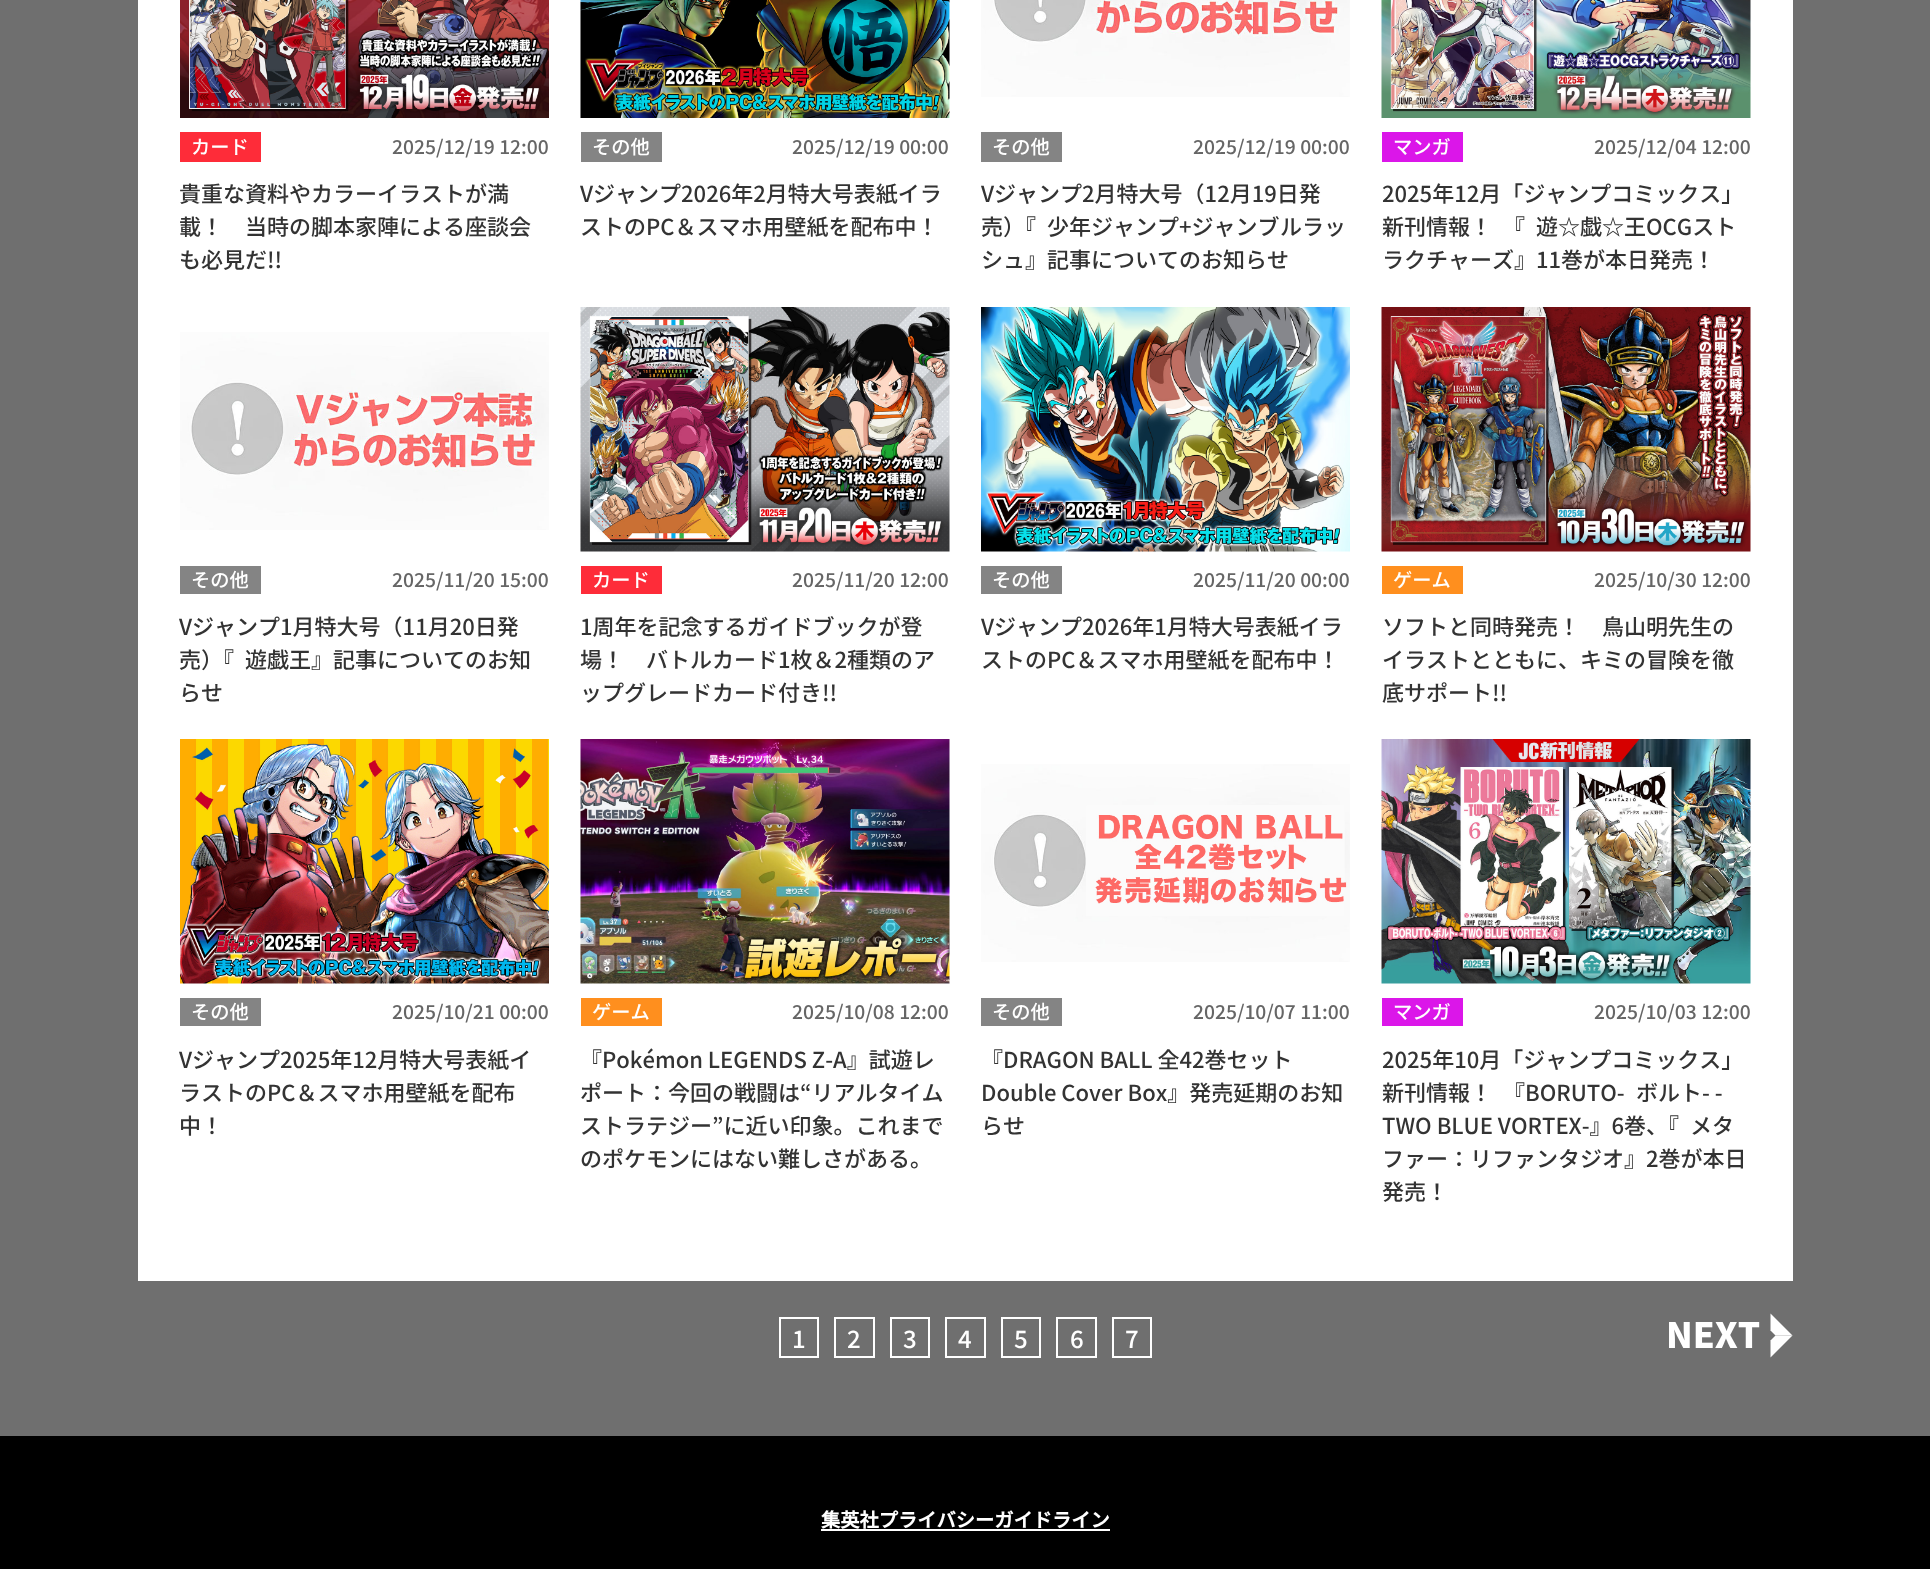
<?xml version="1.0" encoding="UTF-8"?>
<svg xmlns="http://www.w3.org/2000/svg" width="1930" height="1569">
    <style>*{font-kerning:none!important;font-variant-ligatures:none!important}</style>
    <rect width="100%" height="100%" fill="#6F6F6F"/>
    <rect x="138" y="0" width="1655" height="1281" fill="#FFFFFF"/>
    <image x="180" y="0" width="369" height="118" href="img_01.png"/>
    <rect x="180" y="132" width="81" height="30" fill="#FE2C39"/>
    <text x="191" y="154" font-family="Noto Sans JP" font-size="19.25" font-weight="500" fill="#FFFFFF">カード</text>
    <text x="392" y="154" font-family="Noto Sans JP" font-size="19.25" font-weight="500" fill="#666666">2025/12/19 12:00</text>
    <text font-family="Noto Sans JP" font-size="22" font-weight="500" fill="#333333">
        <tspan x="179" y="202">貴重な資料やカラーイラストが満</tspan>
        <tspan x="179" y="235">載！　当時の脚本家陣による座談会</tspan>
        <tspan x="179" y="268">も必見だ!!</tspan>
    </text>
    <image x="580" y="0" width="370" height="118" href="img_02.png"/>
    <rect x="581" y="132" width="81" height="30" fill="#848484"/>
    <text x="592" y="154" font-family="Noto Sans JP" font-size="19.25" font-weight="500" fill="#FFFFFF">その他</text>
    <text x="792" y="154" font-family="Noto Sans JP" font-size="19.25" font-weight="500" fill="#666666">2025/12/19 00:00</text>
    <text font-family="Noto Sans JP" font-size="22" font-weight="500" fill="#333333">
        <tspan x="580" y="202">Vジャンプ2026年2月特大号表紙イラ</tspan>
        <tspan x="580" y="235">ストのPC＆スマホ用壁紙を配布中！</tspan>
    </text>
    <image x="981" y="0" width="369" height="97" href="img_03.png"/>
    <rect x="981" y="132" width="81" height="30" fill="#848484"/>
    <text x="992" y="154" font-family="Noto Sans JP" font-size="19.25" font-weight="500" fill="#FFFFFF">その他</text>
    <text x="1193" y="154" font-family="Noto Sans JP" font-size="19.25" font-weight="500" fill="#666666">2025/12/19 00:00</text>
    <text font-family="Noto Sans JP" font-size="22" font-weight="500" fill="#333333">
        <tspan x="981" y="202">Vジャンプ2月特大号（12月19日発</tspan>
        <tspan x="981" y="235">売）『</tspan>
    </text>
    <text x="1047" y="235" font-family="Noto Sans JP" font-size="22" font-weight="500" fill="#333333">少年ジャンプ+ジャンブ</text>
    <text x="1280" y="235" font-family="Noto Sans JP" font-size="22" font-weight="500" fill="#333333">ルラッ</text>
    <text x="981" y="268" font-family="Noto Sans JP" font-size="22" font-weight="500" fill="#333333">シュ』記事についてのお知らせ</text>
    <image x="1381" y="0" width="370" height="118" href="img_04.png"/>
    <rect x="1382" y="132" width="81" height="30" fill="#DB16E9"/>
    <text x="1393" y="154" font-family="Noto Sans JP" font-size="19.25" font-weight="500" fill="#FFFFFF">マンガ</text>
    <text x="1594" y="154" font-family="Noto Sans JP" font-size="19.25" font-weight="500" fill="#666666">2025/12/04 12:00</text>
    <text font-family="Noto Sans JP" font-size="22" font-weight="500" fill="#333333">
        <tspan x="1382" y="202">2025年12月「ジャンプコミックス」</tspan>
        <tspan x="1382" y="235">新刊情報！　『</tspan>
    </text>
    <text x="1536" y="235" font-family="Noto Sans JP" font-size="22" font-weight="500" fill="#333333">遊☆戯☆王OCGスト</text>
    <text x="1382" y="268" font-family="Noto Sans JP" font-size="22" font-weight="500" fill="#333333">ラクチャーズ』11巻が本日発売！</text>
    <image x="180" y="332" width="369" height="198" href="img_05.png"/>
    <rect x="180" y="566" width="81" height="28" fill="#848484"/>
    <text x="191" y="587" font-family="Noto Sans JP" font-size="19.25" font-weight="500" fill="#FFFFFF">その他</text>
    <text x="392" y="587" font-family="Noto Sans JP" font-size="19.25" font-weight="500" fill="#666666">2025/11/20 15:00</text>
    <text font-family="Noto Sans JP" font-size="22" font-weight="500" fill="#333333">
        <tspan x="179" y="635">Vジャンプ1月特大号（11月20日発</tspan>
        <tspan x="179" y="668">売）『</tspan>
    </text>
    <text x="245" y="668" font-family="Noto Sans JP" font-size="22" font-weight="500" fill="#333333">遊戯王』記事についてのお知</text>
    <text x="179" y="701" font-family="Noto Sans JP" font-size="22" font-weight="500" fill="#333333">らせ</text>
    <image x="580" y="307" width="370" height="245" href="img_06.png"/>
    <rect x="581" y="566" width="81" height="28" fill="#FE2C39"/>
    <text x="592" y="587" font-family="Noto Sans JP" font-size="19.25" font-weight="500" fill="#FFFFFF">カード</text>
    <text x="792" y="587" font-family="Noto Sans JP" font-size="19.25" font-weight="500" fill="#666666">2025/11/20 12:00</text>
    <text font-family="Noto Sans JP" font-size="22" font-weight="500" fill="#333333">
        <tspan x="580" y="635">1周年を記念するガイドブックが登</tspan>
        <tspan x="580" y="668">場！　バトルカード1枚＆2種類のア</tspan>
        <tspan x="580" y="701">ップグレードカード付き!!</tspan>
    </text>
    <image x="981" y="307" width="369" height="245" href="img_07.png"/>
    <rect x="981" y="566" width="81" height="28" fill="#848484"/>
    <text x="992" y="587" font-family="Noto Sans JP" font-size="19.25" font-weight="500" fill="#FFFFFF">その他</text>
    <text x="1193" y="587" font-family="Noto Sans JP" font-size="19.25" font-weight="500" fill="#666666">2025/11/20 00:00</text>
    <text font-family="Noto Sans JP" font-size="22" font-weight="500" fill="#333333">
        <tspan x="981" y="635">Vジャンプ2026年1月特大号表紙イラ</tspan>
        <tspan x="981" y="668">ストのPC＆スマホ用壁紙を配布中！</tspan>
    </text>
    <image x="1381" y="307" width="370" height="245" href="img_08.png"/>
    <rect x="1382" y="566" width="81" height="28" fill="#FF8F1E"/>
    <text x="1393" y="587" font-family="Noto Sans JP" font-size="19.25" font-weight="500" fill="#FFFFFF">ゲーム</text>
    <text x="1594" y="587" font-family="Noto Sans JP" font-size="19.25" font-weight="500" fill="#666666">2025/10/30 12:00</text>
    <text font-family="Noto Sans JP" font-size="22" font-weight="500" fill="#333333">
        <tspan x="1382" y="635">ソフトと同時発売！　鳥山明先生の</tspan>
        <tspan x="1382" y="668">イラストとともに、キミの冒険を徹</tspan>
        <tspan x="1382" y="701">底サポート!!</tspan>
    </text>
    <image x="180" y="739" width="369" height="245" href="img_09.png"/>
    <rect x="180" y="998" width="81" height="28" fill="#848484"/>
    <text x="191" y="1019" font-family="Noto Sans JP" font-size="19.25" font-weight="500" fill="#FFFFFF">その他</text>
    <text x="392" y="1019" font-family="Noto Sans JP" font-size="19.25" font-weight="500" fill="#666666">2025/10/21 00:00</text>
    <text font-family="Noto Sans JP" font-size="22" font-weight="500" fill="#333333">
        <tspan x="179" y="1068">Vジャンプ2025年12月特大号表紙イ</tspan>
        <tspan x="179" y="1101">ラストのPC＆スマホ用壁紙を配布</tspan>
        <tspan x="179" y="1134">中！</tspan>
    </text>
    <image x="580" y="739" width="370" height="245" href="img_10.png"/>
    <rect x="581" y="998" width="81" height="28" fill="#FF8F1E"/>
    <text x="592" y="1019" font-family="Noto Sans JP" font-size="19.25" font-weight="500" fill="#FFFFFF">ゲーム</text>
    <text x="792" y="1019" font-family="Noto Sans JP" font-size="19.25" font-weight="500" fill="#666666">2025/10/08 12:00</text>
    <text font-family="Noto Sans JP" font-size="22" font-weight="500" fill="#333333">
        <tspan x="580" y="1068">『Pokémon LEGENDS Z-A』試遊レ</tspan>
        <tspan x="580" y="1101">ポート：今回の戦闘は“リアルタイム</tspan>
        <tspan x="580" y="1134">ストラテジー”に近い印象。これまで</tspan>
        <tspan x="580" y="1167">のポケモンにはない難しさがある。</tspan>
    </text>
    <image x="981" y="764" width="369" height="198" href="img_11.png"/>
    <rect x="981" y="998" width="81" height="28" fill="#848484"/>
    <text x="992" y="1019" font-family="Noto Sans JP" font-size="19.25" font-weight="500" fill="#FFFFFF">その他</text>
    <text x="1193" y="1019" font-family="Noto Sans JP" font-size="19.25" font-weight="500" fill="#666666">2025/10/07 11:00</text>
    <text font-family="Noto Sans JP" font-size="22" font-weight="500" fill="#333333">
        <tspan x="981" y="1068">『DRAGON BALL 全42巻セット</tspan>
        <tspan x="981" y="1101">Double Cover Box』発売延期のお知</tspan>
        <tspan x="981" y="1134">らせ</tspan>
    </text>
    <image x="1381" y="739" width="370" height="245" href="img_12.png"/>
    <rect x="1382" y="998" width="81" height="28" fill="#DB16E9"/>
    <text x="1393" y="1019" font-family="Noto Sans JP" font-size="19.25" font-weight="500" fill="#FFFFFF">マンガ</text>
    <text x="1594" y="1019" font-family="Noto Sans JP" font-size="19.25" font-weight="500" fill="#666666">2025/10/03 12:00</text>
    <text font-family="Noto Sans JP" font-size="22" font-weight="500" fill="#333333">
        <tspan x="1382" y="1068">2025年10月「ジャンプコミックス」</tspan>
        <tspan x="1382" y="1101">新刊情報！　『BORUTO-</tspan>
    </text>
    <text x="1636" y="1101" font-family="Noto Sans JP" font-size="22" font-weight="500" fill="#333333">ボルト- -</text>
    <text x="1382" y="1134" font-family="Noto Sans JP" font-size="22" font-weight="500" fill="#333333">TWO BLUE VORTEX-』6巻、『</text>
    <text x="1690" y="1134" font-family="Noto Sans JP" font-size="22" font-weight="500" fill="#333333">メタ</text>
    <text font-family="Noto Sans JP" font-size="22" font-weight="500" fill="#333333">
        <tspan x="1382" y="1167">ファー：リファンタジオ』2巻が本日</tspan>
        <tspan x="1382" y="1200">発売！</tspan>
    </text>
    <rect x="780" y="1318" width="38" height="39" fill="none" stroke="#FFFFFF" stroke-width="2"/>
    <text x="792" y="1348" font-family="Noto Sans JP" font-size="24" font-weight="500" fill="#FFFFFF">1</text>
    <rect x="835" y="1318" width="39" height="39" fill="none" stroke="#FFFFFF" stroke-width="2"/>
    <text x="847" y="1348" font-family="Noto Sans JP" font-size="24" font-weight="500" fill="#FFFFFF">2</text>
    <rect x="891" y="1318" width="38" height="39" fill="none" stroke="#FFFFFF" stroke-width="2"/>
    <text x="903" y="1348" font-family="Noto Sans JP" font-size="24" font-weight="500" fill="#FFFFFF">3</text>
    <rect x="946" y="1318" width="39" height="39" fill="none" stroke="#FFFFFF" stroke-width="2"/>
    <text x="958" y="1348" font-family="Noto Sans JP" font-size="24" font-weight="500" fill="#FFFFFF">4</text>
    <rect x="1002" y="1318" width="38" height="39" fill="none" stroke="#FFFFFF" stroke-width="2"/>
    <text x="1014" y="1348" font-family="Noto Sans JP" font-size="24" font-weight="500" fill="#FFFFFF">5</text>
    <rect x="1057" y="1318" width="39" height="39" fill="none" stroke="#FFFFFF" stroke-width="2"/>
    <text x="1070" y="1348" font-family="Noto Sans JP" font-size="24" font-weight="500" fill="#FFFFFF">6</text>
    <rect x="1113" y="1318" width="38" height="39" fill="none" stroke="#FFFFFF" stroke-width="2"/>
    <text x="1125" y="1348" font-family="Noto Sans JP" font-size="24" font-weight="500" fill="#FFFFFF">7</text>
    <text x="1666" y="1348" font-family="Noto Sans JP" font-size="35" font-weight="900" fill="#FFFFFF">NEXT</text>
    <path d="M 1792.5 1335.5 L 1770.5 1357.5 V 1340.5 L 1775.5 1335.5 Z" fill="#FFFFFF"/>
    <path d="M 1770.5 1313.5 L 1792.5 1335.5 H 1775.5 L 1770.5 1330.5 Z" fill="#FFFFFF"/>
    <rect x="0" y="1436" width="1930" height="133" fill="#000000"/>
    <text x="821" y="1527" font-family="Noto Sans JP" font-size="19.25" font-weight="700" fill="#FFFFFF">集英社プライバシーガイドライン</text>
    <rect x="821" y="1529" width="289" height="2" fill="#FFFFFF"/>
</svg>
